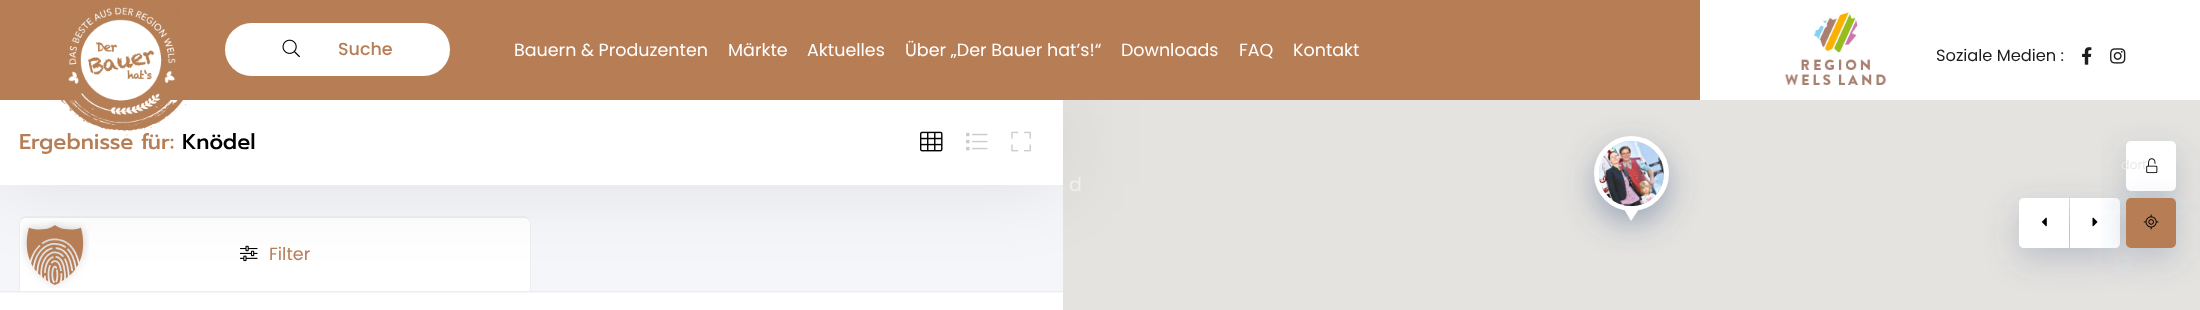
<?xml version="1.0" encoding="UTF-8"?>
<svg xmlns="http://www.w3.org/2000/svg" width="2200" height="310">
    <defs>
        <filter id="blur1" x="-50%" y="-200%" width="200%" height="500%"><feGaussianBlur stdDeviation="40.5"/></filter>
        <filter id="blur2" x="-50%" y="-200%" width="200%" height="500%"><feGaussianBlur stdDeviation="16"/></filter>
    </defs>
    <rect width="100%" height="100%" fill="#E5E3DF"/>
    <rect x="0" y="293" width="1063" height="17" fill="#FFFFFF"/>
    <rect x="0" y="185" width="1063" height="108" fill="#F5F6FA"/>
    <rect x="0" y="291" width="1063" height="1" fill="#EEEEEE"/>
    <path d="M 27 216 H 523 C 527.5 216 531 219.5 531 224 V 291 H 19 V 224 C 19 219.5 22.5 216 27 216 Z" fill="#FFFFFF"/>
    <path d="M 26 216 H 524 C 528 216 531 220 531 224 V 291 H 19 V 224 C 19 220 22 216 26 216 Z M 26 218 H 524 C 527 218 530 220 530 224 V 291 H 20 V 224 C 20 220 23 218 26 218 Z" fill="#EEEEEE" fill-rule="evenodd"/>
    <image x="240" y="245" width="18" height="17" href="img_09.png"/>
    <rect x="0" y="100" width="1063" height="85" fill="#000000" fill-opacity="0.09" filter="url(#blur1)"/>
    <rect x="1594" y="148" width="75" height="75" rx="37.5" fill="#3A5787" fill-opacity="0.45" filter="url(#blur2)"/>
    <rect x="0" y="0" width="1700" height="100" fill="#B77D55"/>
    <rect x="0" y="100" width="1063" height="85" fill="#FFFFFF"/>
    <text x="19" y="149" font-family="Prompt" font-size="21.5" font-weight="500" fill="#B77D55">Ergebnisse für:</text>
    <text x="182" y="149" font-family="Prompt" font-size="21.5" font-weight="500" fill="#000000">Knödel</text>
    <image x="61" y="7" width="126" height="129" href="img_01.png"/>
    <rect x="1700" y="0" width="500" height="100" fill="#FFFFFF"/>
    <rect x="225" y="23" width="225" height="53" rx="26.5" fill="#FFFFFF"/>
    <image x="282" y="39" width="18" height="19" href="img_02.png"/>
    <text x="338" y="55" font-family="Poppins" font-size="17.5" font-weight="500" fill="#B77D55">Suche</text>
    <text x="514" y="56" font-family="Poppins" font-size="17.5" fill="#FFFFFF">Bauern &amp; Produzenten</text>
    <text x="728" y="56" font-family="Poppins" font-size="17.5" fill="#FFFFFF">Märkte</text>
    <text x="807" y="56" font-family="Poppins" font-size="17.5" fill="#FFFFFF">Aktuelles</text>
    <text x="905" y="56" font-family="Poppins" font-size="17.5" fill="#FFFFFF">Über „Der Bauer hat’s!“</text>
    <text x="1121" y="56" font-family="Poppins" font-size="17.5" fill="#FFFFFF">Downloads</text>
    <text x="1239" y="56" font-family="Poppins" font-size="17.5" fill="#FFFFFF">FAQ</text>
    <text x="1293" y="56" font-family="Poppins" font-size="17.5" fill="#FFFFFF">Kontakt</text>
    <image x="1784" y="12" width="103" height="73" href="img_03.png"/>
    <text x="1936" y="61" font-family="Poppins" font-size="16.25" fill="#1D1D1D">Soziale Medien :</text>
    <image x="2082" y="47" width="10" height="18" href="img_04.png"/>
    <image x="2110" y="48" width="16" height="16" href="img_05.png"/>
    <image x="920" y="131" width="23" height="21" href="img_06.png"/>
    <image x="966" y="132" width="22" height="19" href="img_07.png"/>
    <image x="1011" y="131" width="20" height="21" href="img_08.png"/>
    <text x="1069" y="191" font-family="Poppins" font-size="19" fill="#F0F0F0">d</text>
    <text x="269" y="260" font-family="Poppins" font-size="17.5" fill="#B77D55">Filter</text>
    <circle cx="1631.5" cy="173.5" r="35" fill="none" stroke="#FFFFFF" stroke-width="5"/>
    <image x="1599" y="141" width="65" height="66" href="img_10.png"/>
    <path d="M 1624 209 H 1639 L 1631 221 Z" fill="#FFFFFF"/>
    <rect x="2018" y="209" width="102" height="50" rx="5" fill="#3A5787" fill-opacity="0.25" filter="url(#blur2)"/>
    <path d="M 2070 198 H 2115 C 2118 198 2120 200 2120 203 V 243 C 2120 246 2118 248 2115 248 H 2070 Z" fill="#FFFFFF"/>
    <image x="2092" y="217" width="6" height="10" href="img_14.png"/>
    <rect x="2126" y="153" width="50" height="50" rx="5" fill="#3A5787" fill-opacity="0.25" filter="url(#blur2)"/>
    <rect x="2126" y="141" width="50" height="50" rx="5" fill="#FFFFFF"/>
    <image x="2146" y="158" width="12" height="16" href="img_11.png"/>
    <rect x="2126" y="209" width="50" height="50" rx="5" fill="#3A5787" fill-opacity="0.25" filter="url(#blur2)"/>
    <rect x="2126" y="198" width="50" height="50" rx="5" fill="#B77D55"/>
    <text x="2121" y="169" font-family="Poppins" font-size="12.5" fill="#EAE9E7">dort</text>
    <image x="2143" y="214" width="16" height="16" href="img_12.png"/>
    <path d="M 2024 198 H 2069 V 248 H 2024 C 2021 248 2019 246 2019 243 V 203 C 2019 200 2021 198 2024 198 Z" fill="#FFFFFF"/>
    <image x="2042" y="217" width="5" height="10" href="img_13.png"/>
    <image x="21" y="221" width="68" height="67" href="img_15.png"/>
</svg>
